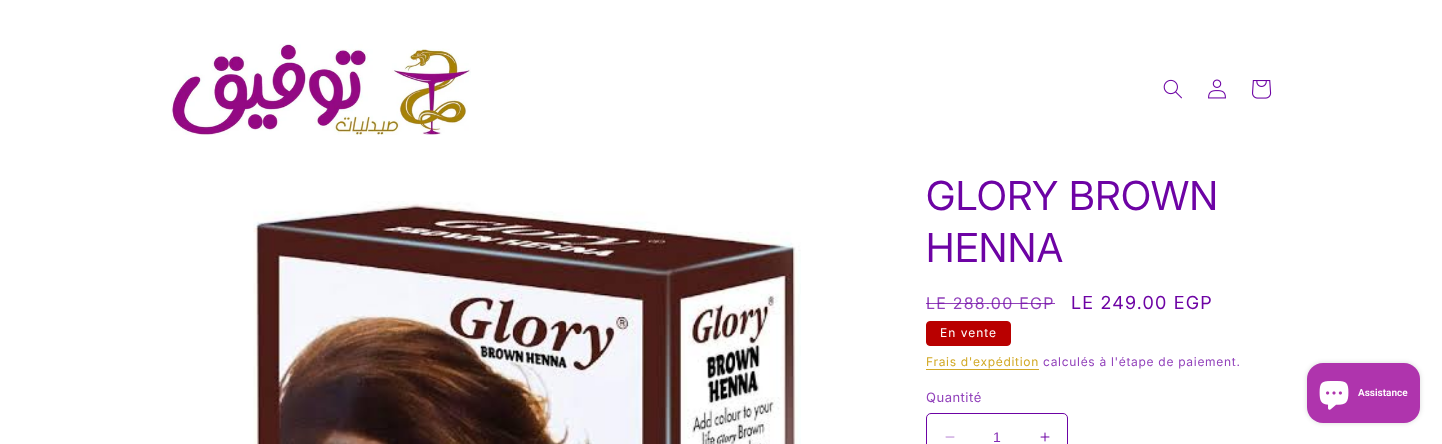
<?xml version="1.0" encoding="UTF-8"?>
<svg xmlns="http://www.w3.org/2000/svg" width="1442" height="444">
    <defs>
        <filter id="blur1" x="-50%" y="-200%" width="200%" height="500%"><feGaussianBlur stdDeviation="2.5"/></filter>
    </defs>
    <rect width="100%" height="100%" fill="#FFFFFF"/>
    <image x="171" y="44" width="300" height="91" href="img_01.png"/>
    <image x="1163" y="79" width="19" height="20" href="img_02.png"/>
    <image x="1208" y="79" width="18" height="20" href="img_03.png"/>
    <image x="1252" y="80" width="20" height="19" href="img_04.png"/>
    <image x="253" y="201" width="548" height="243" href="img_05.png"/>
    <text font-family="Inter" font-size="40" letter-spacing="0.6" fill="#6D03A4">
        <tspan x="926" y="210">GLORY BROWN</tspan>
        <tspan x="926" y="262">HENNA</tspan>
    </text>
    <text x="926" y="309" font-family="'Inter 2'" font-size="16" letter-spacing="1.25" fill="#9242BB">LE 288.00 EGP</text>
    <rect x="926" y="303" width="129" height="1" fill="#6D03A4" fill-opacity="0.75"/>
    <text x="1071" y="309" font-family="'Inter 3'" font-size="18" letter-spacing="1.25" fill="#6D03A4">LE 249.00 EGP</text>
    <rect x="926.5" y="321.5" width="84" height="24" rx="3.5" fill="#B90000" stroke="#B90000"/>
    <text x="940" y="337" font-family="'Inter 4'" font-size="12" letter-spacing="1" fill="#FFFFFF">En vente</text>
    <text x="926" y="366" font-family="'Inter 4'" font-size="12" letter-spacing="0.7" fill="#D2A926">Frais d'expédition</text>
    <rect x="926" y="369" width="113" height="1" fill="#D2A926"/>
    <text x="1043" y="366" font-family="'Inter 4'" font-size="12" letter-spacing="0.7" fill="#9242BB">calculés à l'étape de paiement.</text>
    <text x="926" y="402" font-family="'Inter 4'" font-size="13" letter-spacing="0.5" fill="#9242BB">Quantité</text>
    <image x="945" y="436" width="10" height="2" href="img_06.png"/>
    <image x="1040" y="432" width="10" height="10" href="img_07.png"/>
    <rect x="926.5" y="413.5" width="141" height="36" rx="4.5" fill="none" stroke="#6D03A4"/>
    <text x="993" y="442" font-family="Liberation Sans" font-size="14" fill="#8329B2">1</text>
    <rect x="1307" y="363" width="113" height="60" rx="16" fill="#000000" fill-opacity="0.15" filter="url(#blur1)"/>
    <rect x="1307" y="363" width="113" height="60" rx="16" fill="#AF34AD"/>
    <image x="1319" y="381" width="30" height="29" href="img_08.png"/>
    <text x="1358" y="396" font-family="Roboto" font-size="10" font-weight="600" fill="#FFFFFF">Assistance</text>
</svg>
